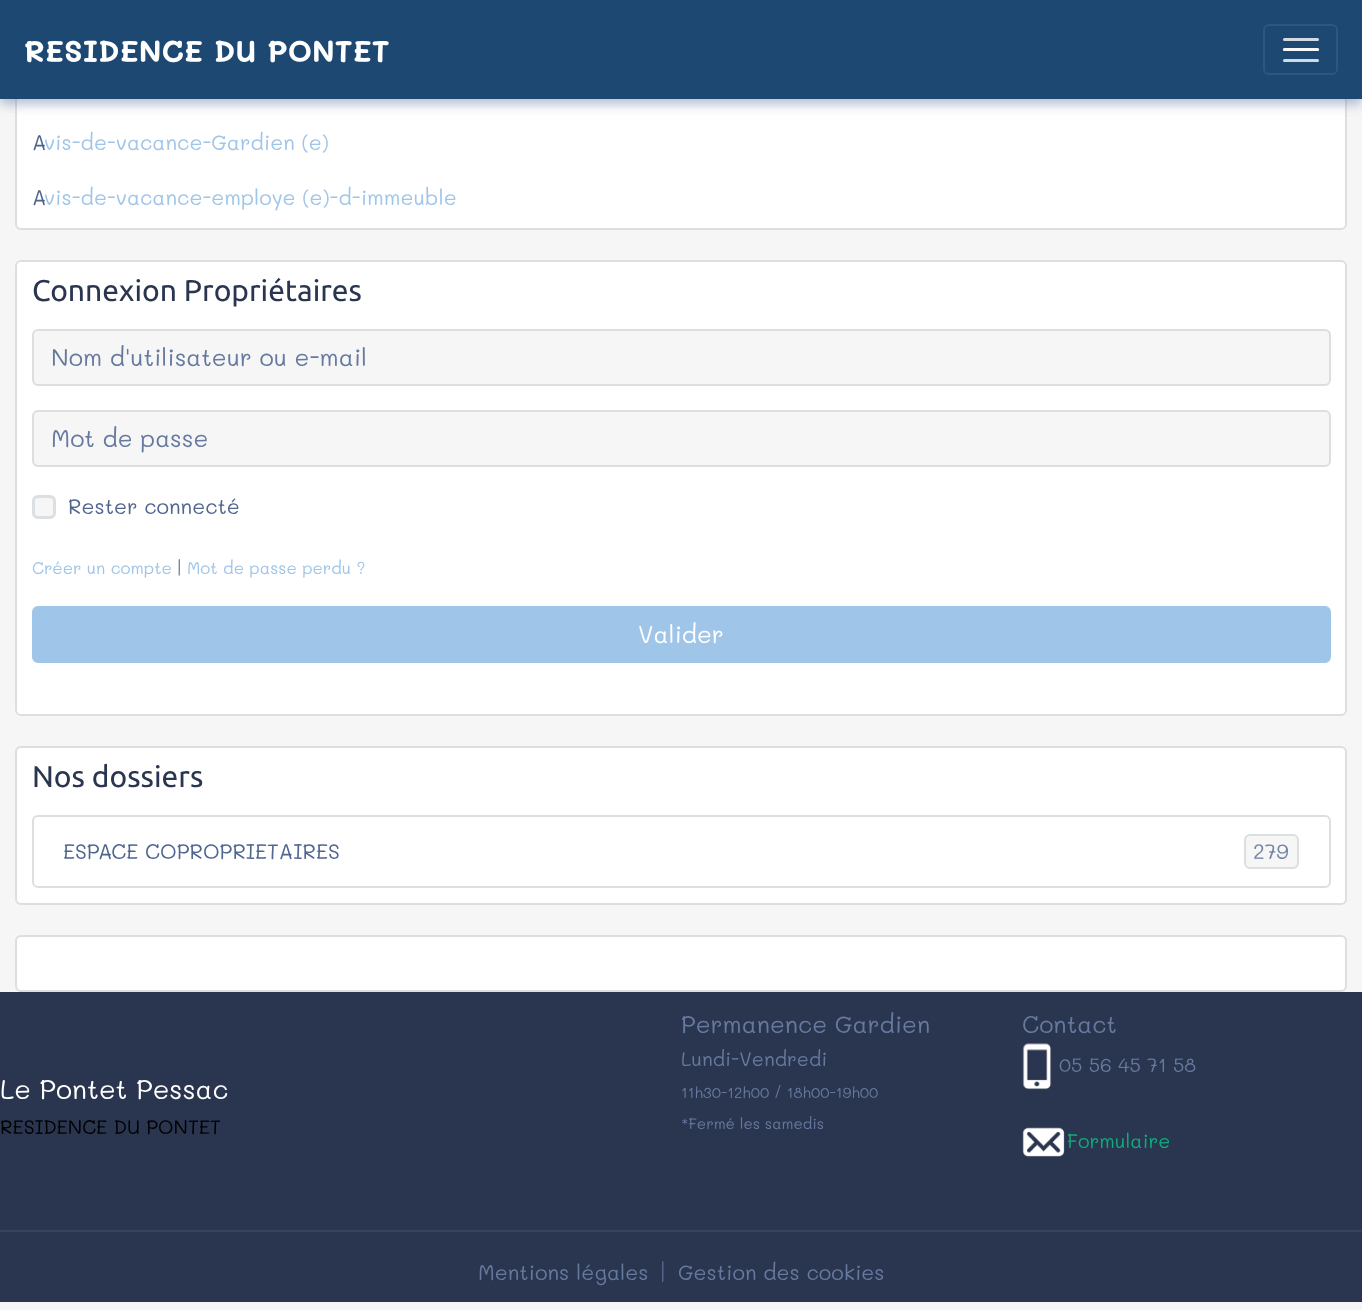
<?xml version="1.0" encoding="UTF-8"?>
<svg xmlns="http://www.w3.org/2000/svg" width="1362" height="1310">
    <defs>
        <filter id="blur1" x="-50%" y="-200%" width="200%" height="500%"><feGaussianBlur stdDeviation="6"/></filter>
    </defs>
    <rect width="100%" height="100%" fill="#F6F6F7"/>
    <rect x="16" y="58" width="1330" height="171" rx="5" fill="#FFFFFF" stroke="#DBDFE2" stroke-width="2"/>
    <rect x="0" y="5" width="1362" height="99" fill="#62759B" fill-opacity="0.5" filter="url(#blur1)"/>
    <rect x="0" y="0" width="1362" height="99" fill="#1D4872"/>
    <text x="24" y="62" font-family="Mali" font-size="30" font-weight="700" fill="#FFFFFF">RESIDENCE DU PONTET</text>
    <rect x="1264" y="25" width="73" height="49" rx="5" fill="none" stroke="#2F577D" stroke-width="2"/>
    <rect x="1283" y="38" width="36" height="3" rx="1.5" fill="#D2DAE3"/>
    <rect x="1283" y="48" width="36" height="3" rx="1.5" fill="#D2DAE3"/>
    <rect x="1283" y="48" width="36" height="3" rx="1.5" fill="#FFFFFF" fill-opacity="0.8"/>
    <rect x="1283" y="59" width="36" height="3" rx="1.5" fill="#D2DAE3"/>
    <text x="32" y="150" font-family="Mali" font-size="21" fill="#506690">A</text>
    <text x="44" y="150" font-family="Mali" font-size="21" fill="#9FC5E8">vis-de-vacance-Gardien (e)</text>
    <text x="32" y="205" font-family="Mali" font-size="21" fill="#506690">A</text>
    <text x="44" y="205" font-family="Mali" font-size="21" fill="#9FC5E8">vis-de-vacance-employe (e)-d-immeuble</text>
    <rect x="16" y="261" width="1330" height="454" rx="5" fill="#FFFFFF" stroke="#DBDFE2" stroke-width="2"/>
    <text x="32" y="301" font-family="Ubuntu" font-size="30" fill="#2A354F">Connexion Propriétaires</text>
    <rect x="33" y="330" width="1297" height="55" rx="5" fill="#F6F6F7" stroke="#DBDFE2" stroke-width="2"/>
    <text x="51" y="366" font-family="Mali" font-size="24" fill="#66799E">Nom d'utilisateur ou e-mail</text>
    <rect x="33" y="411" width="1297" height="55" rx="5" fill="#F6F6F7" stroke="#DBDFE2" stroke-width="2"/>
    <text x="51" y="447" font-family="Mali" font-size="24" fill="#66799E">Mot de passe</text>
    <rect x="33.5" y="496.5" width="21" height="21" rx="4.5" fill="#F6F6F7" stroke="#DBDFE2" stroke-width="3"/>
    <text x="68" y="514" font-family="Mali" font-size="21" fill="#506690">Rester connecté</text>
    <text x="32" y="574" font-family="Mali" font-size="16.75" fill="#9FC5E8">Créer un compte</text>
    <text x="177" y="574" font-family="Mali" font-size="16.75" fill="#506690">|</text>
    <text x="187" y="574" font-family="Mali" font-size="16.75" fill="#9FC5E8">Mot de passe perdu ?</text>
    <rect x="33" y="607" width="1297" height="55" rx="5" fill="#9FC5E8" stroke="#9FC5E8" stroke-width="2"/>
    <text x="638" y="643" font-family="Mali" font-size="24" fill="#FFFFFF">Valider</text>
    <rect x="16" y="747" width="1330" height="157" rx="5" fill="#FFFFFF" stroke="#DBDFE2" stroke-width="2"/>
    <text x="32" y="787" font-family="Ubuntu" font-size="30" fill="#2A354F">Nos dossiers</text>
    <rect x="33" y="816" width="1297" height="71" rx="5" fill="none" stroke="#DBDFE2" stroke-width="2"/>
    <text x="63" y="859" font-family="Mali" font-size="21" fill="#506690">ESPACE COPROPRIETAIRES</text>
    <rect x="1245" y="835" width="53" height="33" rx="5" fill="#F6F6F7" stroke="#DBDFE2" stroke-width="2"/>
    <text x="1253" y="859" font-family="Mali" font-size="21" fill="#7183A5">279</text>
    <rect x="16" y="936" width="1330" height="55" rx="5" fill="#FFFFFF" stroke="#DBDFE2" stroke-width="2"/>
    <rect x="0" y="992" width="1362" height="310" fill="#2A354F"/>
    <text x="0" y="1099" font-family="Mali" font-size="27" fill="#FFFFFF">Le Pontet Pessac</text>
    <text x="0" y="1134" font-family="Mali" font-size="19.5" fill="#000000">RESIDENCE DU PONTET</text>
    <text x="681" y="1033" font-family="Mali" font-size="24" fill="#66799E">Permanence Gardien</text>
    <text x="681" y="1066" font-family="Mali" font-size="19.5" fill="#66799E">Lundi-Vendredi</text>
    <text x="681" y="1098" font-family="Mali" font-size="15" fill="#66799E">11h30-12h00 / 18h00-19h00</text>
    <text x="681" y="1129" font-family="Mali" font-size="15" fill="#66799E">*Fermé les samedis</text>
    <text x="1022" y="1033" font-family="Mali" font-size="24" fill="#66799E">Contact</text>
    <image x="1022" y="1043" width="30" height="47" href="img_01.png"/>
    <text x="1059" y="1072" font-family="Mali" font-size="19.5" fill="#66799E">05 56 45 71 58</text>
    <image x="1022" y="1127" width="43" height="30" href="img_02.png"/>
    <text x="1067" y="1148" font-family="Mali" font-size="19.5" fill="#11AB7C">Formulaire</text>
    <rect x="0" y="1230" width="1362" height="2" fill="#36435F"/>
    <text x="478" y="1280" font-family="Mali" font-size="21" fill="#66799E">Mentions légales</text>
    <text x="660" y="1280" font-family="Mali" font-size="21" fill="#5A6B8E">|</text>
    <text x="678" y="1280" font-family="Mali" font-size="21" fill="#66799E">Gestion des cookies</text>
</svg>
